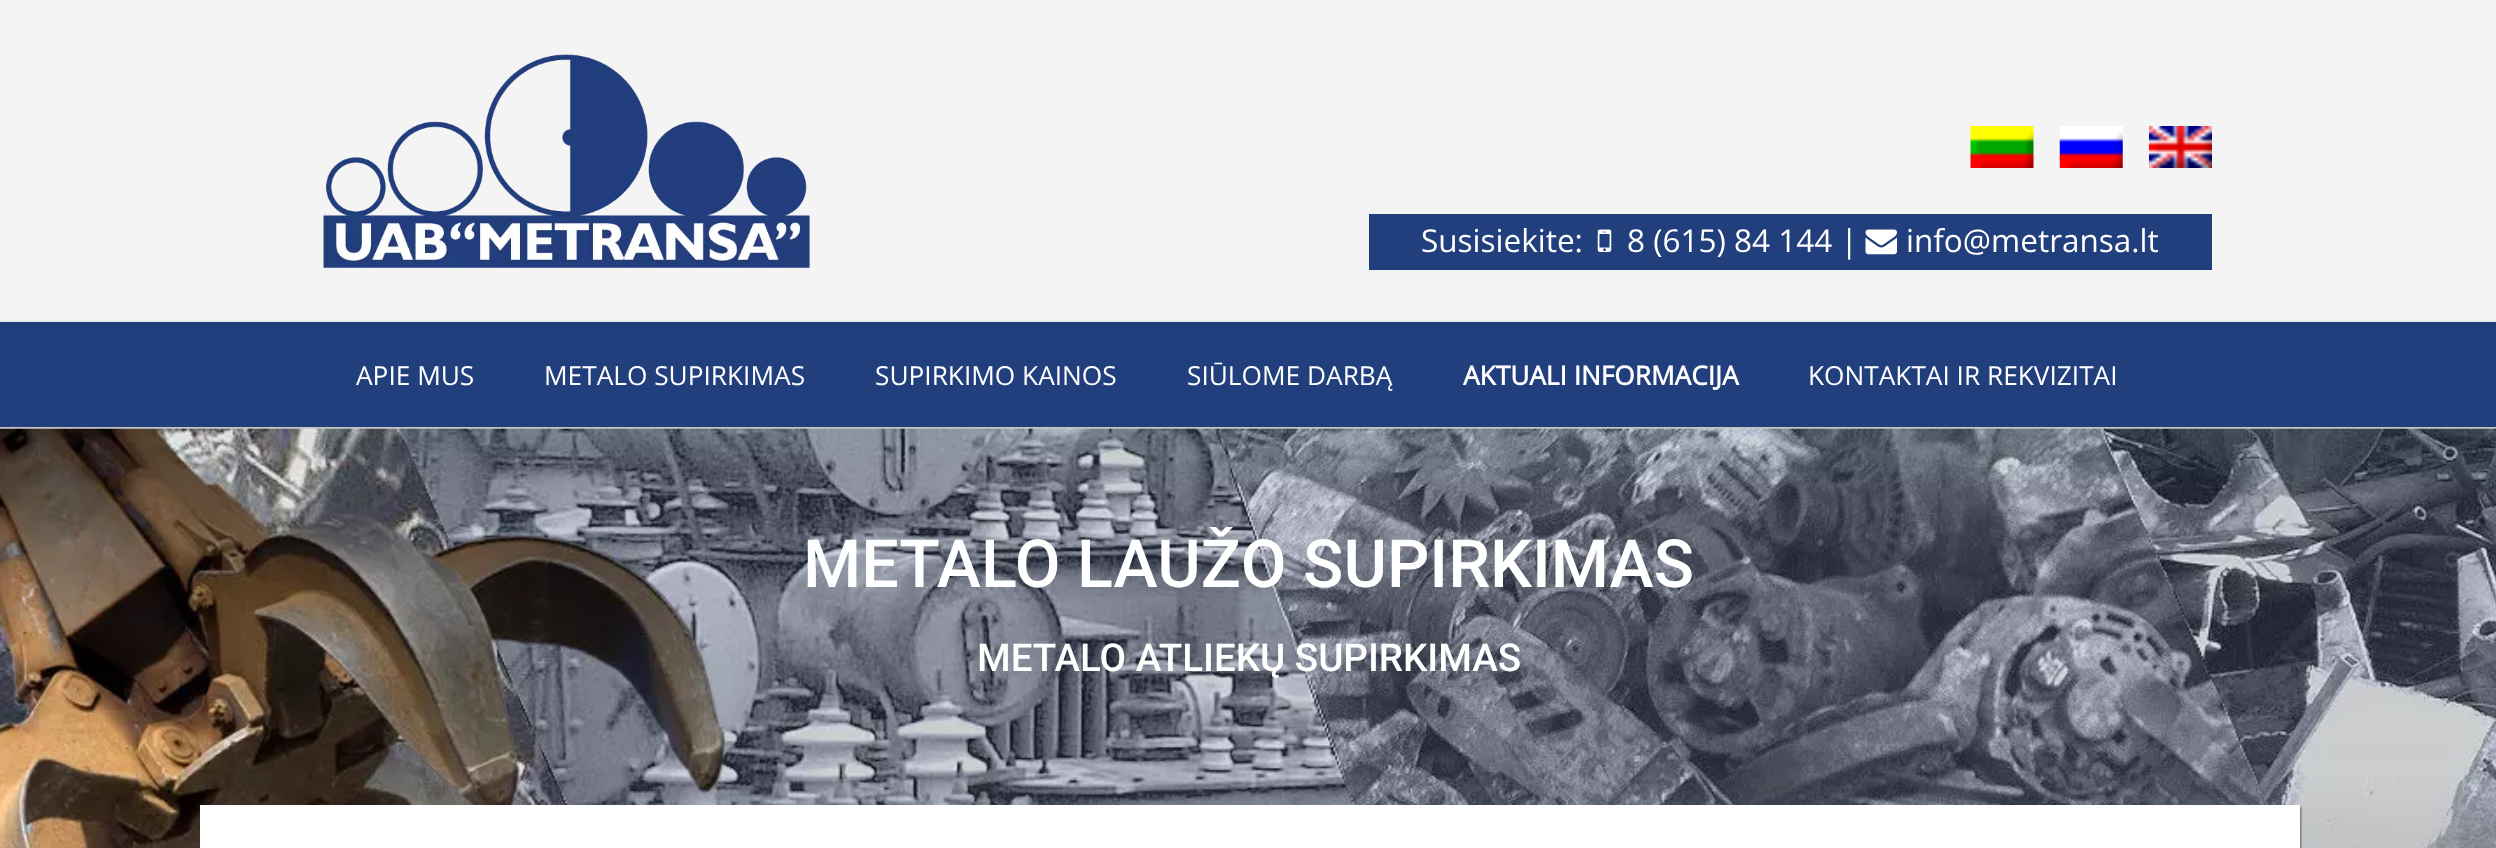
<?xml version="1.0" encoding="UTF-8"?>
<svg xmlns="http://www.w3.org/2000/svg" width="2496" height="848">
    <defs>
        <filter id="blur1" x="-50%" y="-200%" width="200%" height="500%"><feGaussianBlur stdDeviation="1"/></filter>
    </defs>
    <rect width="100%" height="100%" fill="#F4F4F4"/>
    <image x="323" y="54" width="487" height="214" href="img_01.png"/>
    <image x="1970" y="126" width="64" height="42" href="img_02.png"/>
    <image x="2059" y="126" width="64" height="42" href="img_03.png"/>
    <image x="2149" y="126" width="63" height="42" href="img_04.png"/>
    <rect x="1369" y="214" width="843" height="56" fill="#213E7D"/>
    <text x="1421" y="252" font-family="Open Sans" font-size="31.5" fill="#FFFFFF">Susisiekite:</text>
    <image x="1597" y="229" width="15" height="23" href="img_05.png"/>
    <text x="1627" y="252" font-family="Open Sans" font-size="31.5" fill="#FFFFFF">8 (615) 84 144 |</text>
    <image x="1865" y="229" width="32" height="26" href="img_06.png"/>
    <text x="1906" y="252" font-family="Open Sans" font-size="31.5" fill="#FFFFFF">info@metransa.lt</text>
    <rect x="0" y="322" width="2496" height="105" fill="#213E7D"/>
    <rect x="0" y="320" width="2496" height="2" fill="#EAEAEA"/>
    <text x="356" y="385" font-family="Open Sans" font-size="26.25" fill="#FFFFFF">APIE MUS</text>
    <text x="544" y="385" font-family="Open Sans" font-size="26.25" fill="#FFFFFF">METALO SUPIRKIMAS</text>
    <text x="875" y="385" font-family="Open Sans" font-size="26.25" fill="#FFFFFF">SUPIRKIMO KAINOS</text>
    <text x="1187" y="385" font-family="Open Sans" font-size="26.25" fill="#FFFFFF">SIŪLOME DARBĄ</text>
    <text x="1463" y="385" font-family="Open Sans" font-size="26.25" font-weight="700" fill="#FFFFFF">AKTUALI INFORMACIJA</text>
    <text x="1808" y="385" font-family="Open Sans" font-size="26.25" fill="#FFFFFF">KONTAKTAI IR REKVIZITAI</text>
    <rect x="0" y="427" width="2496" height="2" fill="#C3C4C6"/>
    <image x="0" y="428" width="2496" height="420" href="img_07.png"/>
    <text x="803" y="587" font-family="Roboto" font-size="66.5" font-weight="500" fill="#FFFFFF">METALO LAUŽO SUPIRKIMAS</text>
    <text x="977" y="671" font-family="Roboto" font-size="38.5" font-weight="500" fill="#FFFFFF">METALO ATLIEKŲ SUPIRKIMAS</text>
    <rect x="201" y="807" width="2100" height="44" fill="#000000" fill-opacity="0.5" filter="url(#blur1)"/>
    <rect x="200" y="805" width="2100" height="43" fill="#FFFFFF"/>
</svg>
